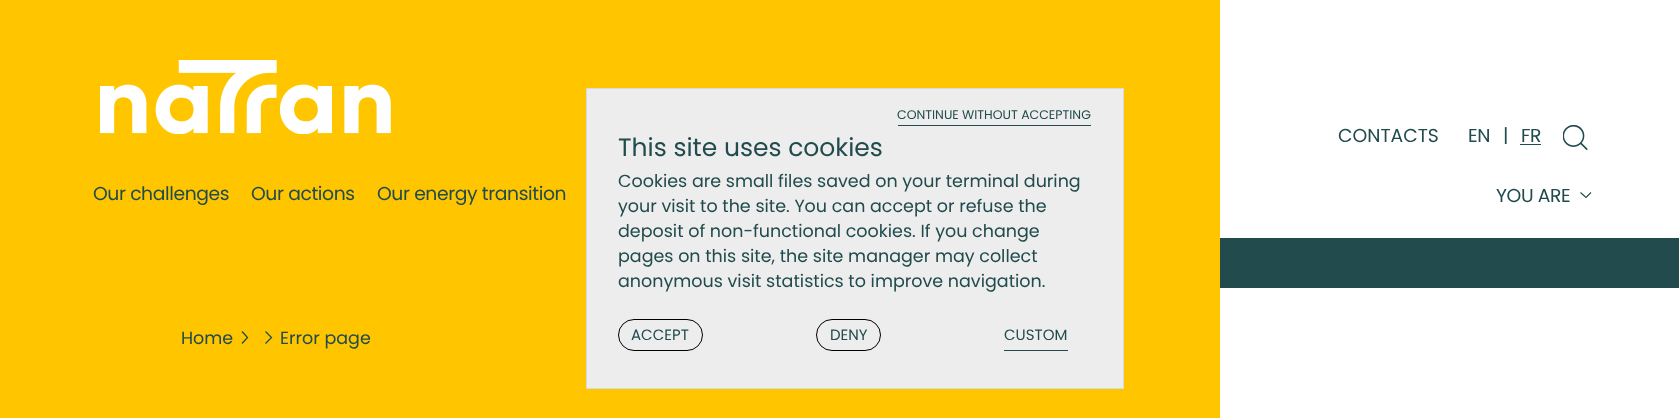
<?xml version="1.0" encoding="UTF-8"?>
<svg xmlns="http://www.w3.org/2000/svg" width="1679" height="418">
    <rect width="100%" height="100%" fill="#214B4D"/>
    <rect x="0" y="0" width="1220" height="418" fill="#FFC600"/>
    <rect x="586.5" y="88.5" width="537" height="300" fill="#EDEDED" stroke="#DADADA"/>
    <text x="897" y="119" font-family="Poppins" font-size="12.5" fill="#214B4D">CONTINUE WITHOUT ACCEPTING</text>
    <rect x="898" y="125" width="193" height="1" fill="#214B4D"/>
    <text x="618" y="156" font-family="Poppins" font-size="25" fill="#214B4D">This site uses cookies</text>
    <text font-family="Poppins" font-size="17.5" fill="#214B4D">
        <tspan x="618" y="187">Cookies are small files saved on your terminal during</tspan>
        <tspan x="618" y="212">your visit to the site. You can accept or refuse the</tspan>
        <tspan x="618" y="237">deposit of non-functional cookies. If you change</tspan>
        <tspan x="618" y="262">pages on this site, the site manager may collect</tspan>
        <tspan x="618" y="287">anonymous visit statistics to improve navigation.</tspan>
    </text>
    <rect x="618.5" y="319.5" width="84" height="31" rx="15.5" fill="none" stroke="#000000"/>
    <text x="631" y="340" font-family="Poppins" font-size="15" fill="#214B4D">ACCEPT</text>
    <rect x="816.5" y="319.5" width="64" height="31" rx="15.5" fill="none" stroke="#000000"/>
    <text x="830" y="340" font-family="Poppins" font-size="15" fill="#214B4D">DENY</text>
    <text x="1004" y="340" font-family="Poppins" font-size="15" fill="#214B4D">CUSTOM</text>
    <rect x="1004" y="350" width="64" height="1" fill="#214B4D"/>
    <image x="100" y="60" width="291" height="74" href="img_01.png"/>
    <text x="93" y="200" font-family="Poppins" font-size="18.75" letter-spacing="-0.4" fill="#214B4D">Our challenges</text>
    <text x="251" y="200" font-family="Poppins" font-size="18.75" letter-spacing="-0.4" fill="#214B4D">Our actions</text>
    <text x="377" y="200" font-family="Poppins" font-size="18.75" letter-spacing="-0.4" fill="#214B4D">Our energy transition</text>
    <rect x="1220" y="0" width="459" height="238" fill="#FFFFFF"/>
    <text x="1338" y="142" font-family="Poppins" font-size="18.75" fill="#214B4D">CONTACTS</text>
    <text x="1468" y="142" font-family="Poppins" font-size="18.75" letter-spacing="-0.4" fill="#214B4D">EN</text>
    <text x="1503" y="142" font-family="Poppins" font-size="18.75" letter-spacing="-0.4" fill="#214B4D">|</text>
    <text x="1521" y="142" font-family="Poppins" font-size="18.75" letter-spacing="-0.4" fill="#214B4D">FR</text>
    <rect x="1520" y="144" width="21" height="1" fill="#214B4D"/>
    <image x="1563" y="125" width="25" height="25" href="img_02.png"/>
    <text x="1496" y="202" font-family="Poppins" font-size="18.75" letter-spacing="-0.4" fill="#214B4D">YOU ARE</text>
    <path d="M 1591 192.5 L 1586 197.5 L 1580.5 192.5" fill="none" stroke="#214B4D" stroke-width="1.1"/>
    <rect x="1220" y="288" width="459" height="130" fill="#FFFFFF"/>
    <text x="181" y="344" font-family="Poppins" font-size="17.5" fill="#214B4D">Home</text>
    <path d="M 242 331.5 L 247.5 337.5 L 242 343.5 M 265.5 331.5 L 271.5 337.5 L 265.5 343.5" fill="none" stroke="#214B4D" stroke-width="1.3"/>
    <text x="280" y="344" font-family="Poppins" font-size="17.5" fill="#214B4D">Error page</text>
</svg>
